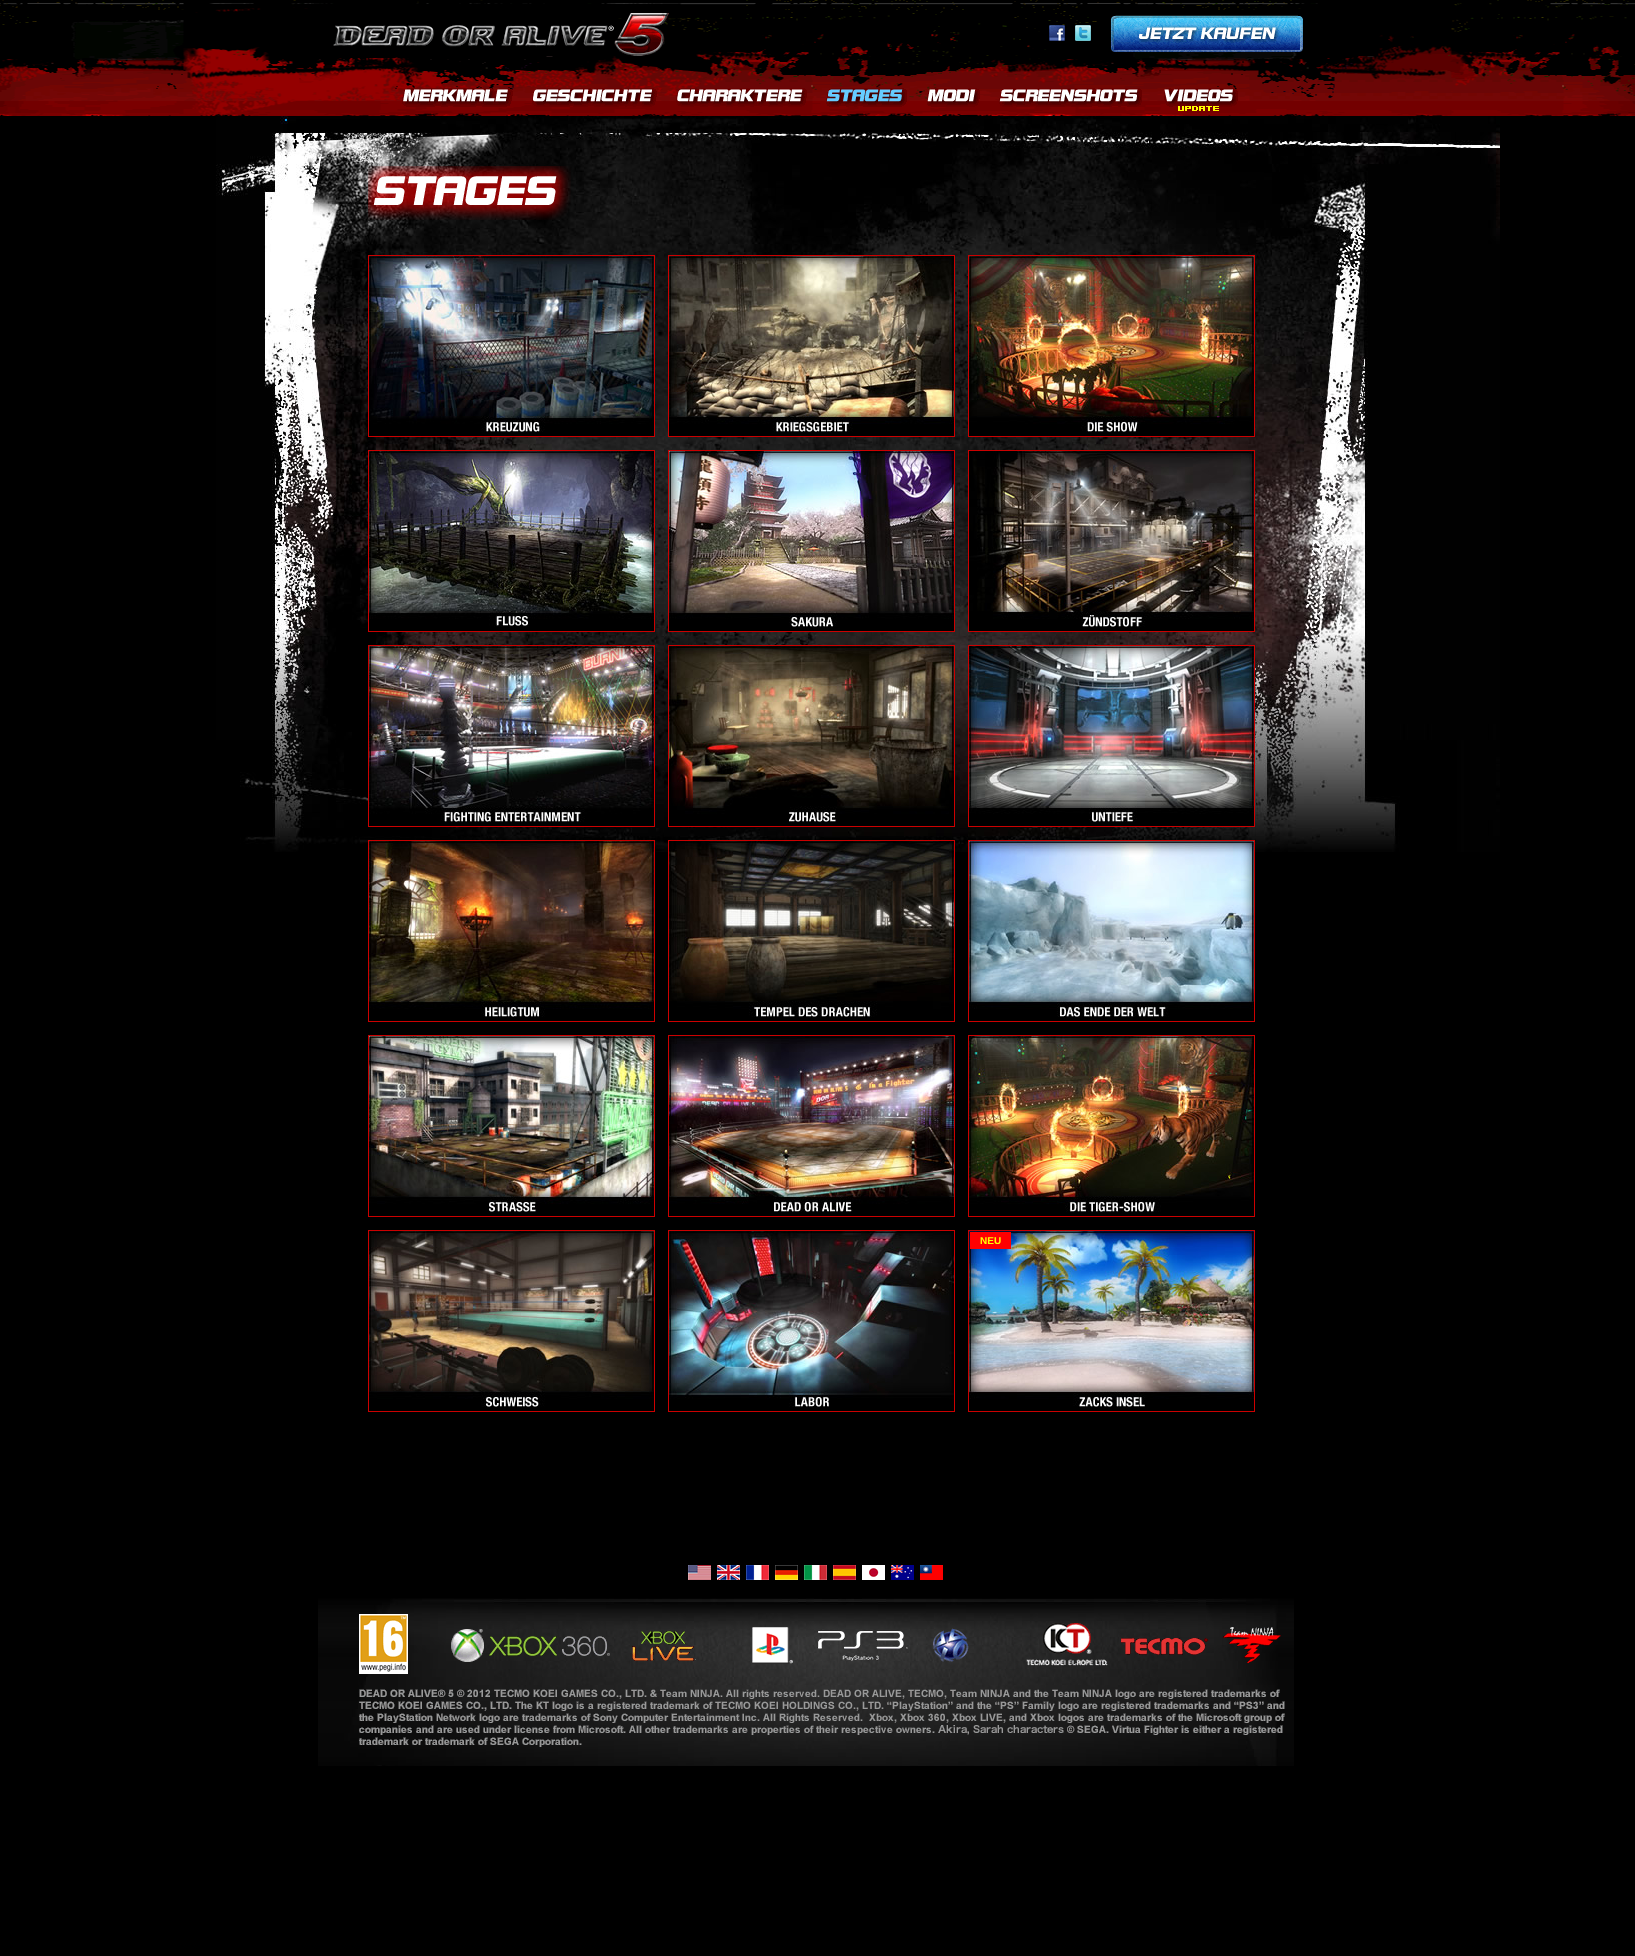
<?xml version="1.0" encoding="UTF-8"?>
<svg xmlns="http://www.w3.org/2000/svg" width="1635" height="1956">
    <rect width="100%" height="100%" fill="#000000"/>
    <image x="0" y="0" width="1635" height="116" href="img_01.png"/>
    <image x="333" y="13" width="336" height="43" href="img_02.png"/>
    <image x="1049" y="25" width="16" height="16" href="img_03.png"/>
    <image x="1075" y="25" width="16" height="16" href="img_04.png"/>
    <image x="1111" y="15" width="192" height="37" href="img_05.png"/>
    <image x="402" y="88" width="111" height="19" href="img_06.png"/>
    <image x="403" y="89" width="105" height="13" href="img_07.png"/>
    <image x="532" y="88" width="125" height="19" href="img_08.png"/>
    <image x="533" y="89" width="119" height="13" href="img_09.png"/>
    <image x="676" y="88" width="131" height="19" href="img_10.png"/>
    <image x="677" y="89" width="126" height="13" href="img_11.png"/>
    <image x="826" y="88" width="81" height="19" href="img_12.png"/>
    <image x="927" y="88" width="53" height="19" href="img_13.png"/>
    <image x="927" y="89" width="49" height="13" href="img_14.png"/>
    <image x="999" y="88" width="143" height="19" href="img_15.png"/>
    <image x="999" y="89" width="139" height="13" href="img_16.png"/>
    <image x="1165" y="88" width="73" height="23" href="img_17.png"/>
    <image x="1164" y="89" width="69" height="13" href="img_18.png"/>
    <image x="216" y="116" width="1284" height="736" href="img_19.png"/>
    <image x="368" y="166" width="203" height="54" href="img_20.png"/>
    <rect x="368.5" y="255.5" width="286" height="181" fill="none" stroke="#CC0000"/>
    <image x="369" y="256" width="285" height="180" href="img_21.png"/>
    <rect x="668.5" y="255.5" width="286" height="181" fill="none" stroke="#CC0000"/>
    <image x="669" y="256" width="285" height="180" href="img_22.png"/>
    <rect x="968.5" y="255.5" width="286" height="181" fill="none" stroke="#CC0000"/>
    <image x="969" y="256" width="285" height="180" href="img_23.png"/>
    <rect x="368.5" y="450.5" width="286" height="181" fill="none" stroke="#CC0000"/>
    <image x="369" y="451" width="285" height="180" href="img_24.png"/>
    <rect x="668.5" y="450.5" width="286" height="181" fill="none" stroke="#CC0000"/>
    <image x="669" y="451" width="285" height="180" href="img_25.png"/>
    <rect x="968.5" y="450.5" width="286" height="181" fill="none" stroke="#CC0000"/>
    <image x="969" y="451" width="285" height="180" href="img_26.png"/>
    <rect x="368.5" y="645.5" width="286" height="181" fill="none" stroke="#CC0000"/>
    <image x="369" y="646" width="285" height="180" href="img_27.png"/>
    <rect x="668.5" y="645.5" width="286" height="181" fill="none" stroke="#CC0000"/>
    <image x="669" y="646" width="285" height="180" href="img_28.png"/>
    <rect x="968.5" y="645.5" width="286" height="181" fill="none" stroke="#CC0000"/>
    <image x="969" y="646" width="285" height="180" href="img_29.png"/>
    <rect x="368.5" y="840.5" width="286" height="181" fill="none" stroke="#CC0000"/>
    <image x="369" y="841" width="285" height="176" href="img_30.png"/>
    <rect x="668.5" y="840.5" width="286" height="181" fill="none" stroke="#CC0000"/>
    <image x="669" y="841" width="285" height="176" href="img_31.png"/>
    <rect x="968.5" y="840.5" width="286" height="181" fill="none" stroke="#CC0000"/>
    <image x="969" y="841" width="285" height="176" href="img_32.png"/>
    <rect x="368.5" y="1035.5" width="286" height="181" fill="none" stroke="#CC0000"/>
    <image x="369" y="1036" width="285" height="176" href="img_33.png"/>
    <rect x="668.5" y="1035.5" width="286" height="181" fill="none" stroke="#CC0000"/>
    <image x="669" y="1036" width="285" height="176" href="img_34.png"/>
    <rect x="968.5" y="1035.5" width="286" height="181" fill="none" stroke="#CC0000"/>
    <image x="969" y="1036" width="285" height="176" href="img_35.png"/>
    <rect x="368.5" y="1230.5" width="286" height="181" fill="none" stroke="#CC0000"/>
    <image x="369" y="1231" width="285" height="176" href="img_36.png"/>
    <rect x="668.5" y="1230.5" width="286" height="181" fill="none" stroke="#CC0000"/>
    <image x="669" y="1231" width="285" height="176" href="img_37.png"/>
    <rect x="968.5" y="1230.5" width="286" height="181" fill="none" stroke="#CC0000"/>
    <image x="969" y="1231" width="285" height="176" href="img_38.png"/>
    <rect x="970" y="1232" width="41" height="17" fill="#FF0000"/>
    <text x="980" y="1244" font-family="Liberation Sans" font-size="10" font-weight="700" fill="#FFFF00">NEU</text>
    <image x="318" y="1598" width="976" height="168" href="img_39.png"/>
    <image x="688" y="1565" width="23" height="15" href="img_40.png"/>
    <image x="717" y="1565" width="23" height="15" href="img_41.png"/>
    <image x="746" y="1565" width="23" height="15" href="img_42.png"/>
    <image x="775" y="1565" width="23" height="15" href="img_43.png"/>
    <image x="804" y="1565" width="23" height="15" href="img_44.png"/>
    <image x="833" y="1565" width="23" height="15" href="img_45.png"/>
    <image x="862" y="1565" width="23" height="15" href="img_46.png"/>
    <image x="891" y="1565" width="23" height="15" href="img_47.png"/>
    <image x="920" y="1565" width="23" height="15" href="img_48.png"/>
    <image x="359" y="1614" width="926" height="133" href="img_49.png"/>
</svg>
